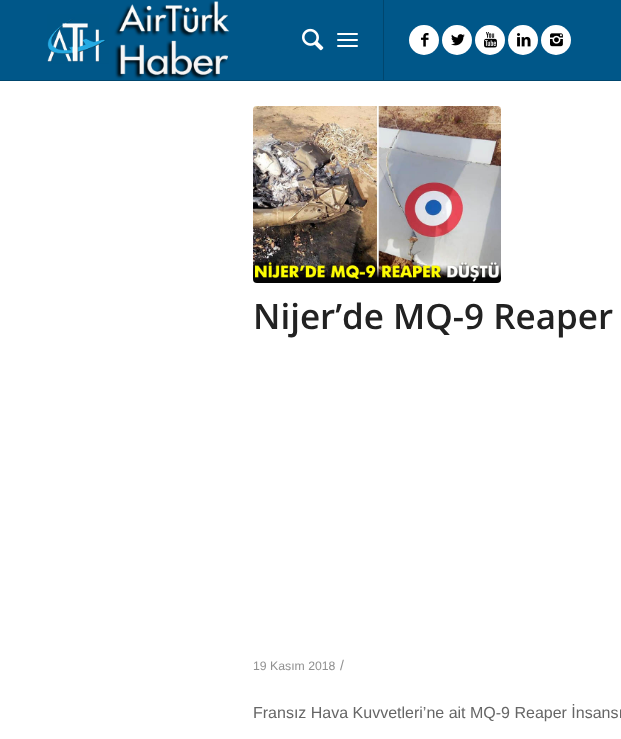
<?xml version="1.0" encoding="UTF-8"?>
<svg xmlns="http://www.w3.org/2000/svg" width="621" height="739">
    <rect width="100%" height="100%" fill="#005789"/>
    <rect x="0" y="80" width="621" height="1" fill="#00466E"/>
    <image x="47" y="1" width="183" height="79" href="img_01.png"/>
    <rect x="383" y="0" width="1" height="80" fill="#00466E"/>
    <image x="302" y="28" width="22" height="23" href="img_02.png"/>
    <rect x="337" y="39" width="21" height="2" rx="1" fill="#FFFFFF"/>
    <rect x="337" y="33" width="21" height="2" rx="1" fill="#FFFFFF"/>
    <rect x="337" y="45" width="21" height="2" rx="1" fill="#FFFFFF"/>
    <circle cx="424" cy="40" r="15" fill="#FFFFFF"/>
    <image x="421" y="33" width="8" height="14" href="img_03.png"/>
    <circle cx="457" cy="40" r="15" fill="#FFFFFF"/>
    <image x="451" y="34" width="14" height="12" href="img_04.png"/>
    <circle cx="490" cy="40" r="15" fill="#FFFFFF"/>
    <image x="484" y="32" width="13" height="16" href="img_05.png"/>
    <circle cx="523" cy="40" r="15" fill="#FFFFFF"/>
    <image x="517" y="33" width="14" height="14" href="img_06.png"/>
    <circle cx="556" cy="40" r="15" fill="#FFFFFF"/>
    <image x="550" y="33" width="13" height="14" href="img_07.png"/>
    <rect x="0" y="81" width="621" height="658" fill="#FFFFFF"/>
    <image x="253" y="106" width="248" height="177" href="img_08.png"/>
    <text x="253" y="329" font-family="Open Sans" font-size="35" font-weight="600" fill="#222222">Nijer’de MQ-9 Reaper</text>
    <text x="253" y="670" font-family="Liberation Sans" font-size="12.25" fill="#919191">19 Kasım 2018</text>
    <text x="340" y="670" font-family="Liberation Sans" font-size="14" fill="#919191">/</text>
    <text x="253" y="718" font-family="Liberation Sans" font-size="16" fill="#666666">Fransız Hava Kuvvetleri’ne ait MQ-9 Reaper İnsansı</text>
</svg>
